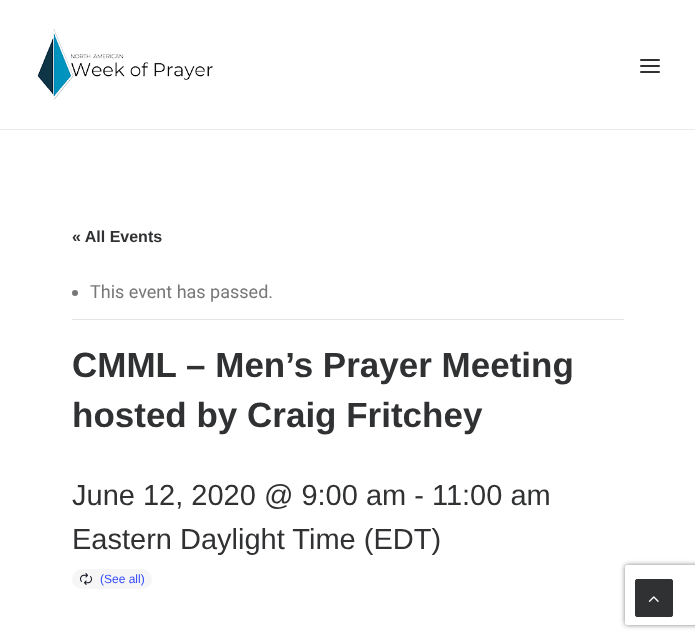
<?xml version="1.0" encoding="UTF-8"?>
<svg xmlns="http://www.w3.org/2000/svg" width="695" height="639">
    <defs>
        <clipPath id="clip1"><path d="M 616 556 H 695 V 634 H 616 Z M 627 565 H 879 C 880 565 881 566 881 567 V 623 C 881 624 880 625 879 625 H 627 C 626 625 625 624 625 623 V 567 C 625 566 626 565 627 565 Z" clip-rule="evenodd"/></clipPath>
        <filter id="blur1" x="-50%" y="-200%" width="200%" height="500%"><feGaussianBlur stdDeviation="2.5"/></filter>
    </defs>
    <rect width="100%" height="100%" fill="#FFFFFF"/>
    <rect x="0" y="129" width="695" height="1" fill="#EAEAEA"/>
    <image x="37" y="29" width="176" height="71" href="img_01.png"/>
    <rect x="640" y="65" width="20" height="2" rx="1" fill="#303133"/>
    <rect x="640" y="59" width="20" height="2" rx="1" fill="#303133"/>
    <rect x="640" y="71" width="20" height="2" rx="1" fill="#303133"/>
    <text x="72" y="242" font-family="Liberation Sans" font-size="16" font-weight="700" fill="#303133">« All Events</text>
    <rect x="72" y="319" width="552" height="1" fill="#E4E4E4"/>
    <circle cx="75" cy="293" r="3" fill="#777777"/>
    <text x="90" y="298" font-family="Roboto" font-size="18" fill="#777777">This event has passed.</text>
    <text font-family="Liberation Sans" font-size="35" font-weight="700" fill="#303133">
        <tspan x="72" y="377">CMML – Men’s Prayer Meeting</tspan>
        <tspan x="72" y="427">hosted by Craig Fritchey</tspan>
    </text>
    <text font-family="Liberation Sans" font-size="29" fill="#303133">
        <tspan x="72" y="505">June 12, 2020 @ 9:00 am - 11:00 am</tspan>
        <tspan x="72" y="549">Eastern Daylight Time (EDT)</tspan>
    </text>
    <rect x="72" y="569" width="80" height="20" rx="10" fill="#F7F6F6"/>
    <image x="80" y="573" width="12" height="12" href="img_02.png"/>
    <text x="100" y="583" font-family="Liberation Sans" font-size="12" fill="#334AFF">(See all)</text>
    <g clip-path="url(#clip1)">
        <rect x="625" y="565" width="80" height="60" rx="2" fill="#808080" filter="url(#blur1)"/>
    </g>
    <rect x="635.5" y="579.5" width="37" height="37" rx="1.5" fill="#303133" stroke="#303133"/>
    <image x="648" y="596" width="11" height="6" href="img_03.png"/>
</svg>
